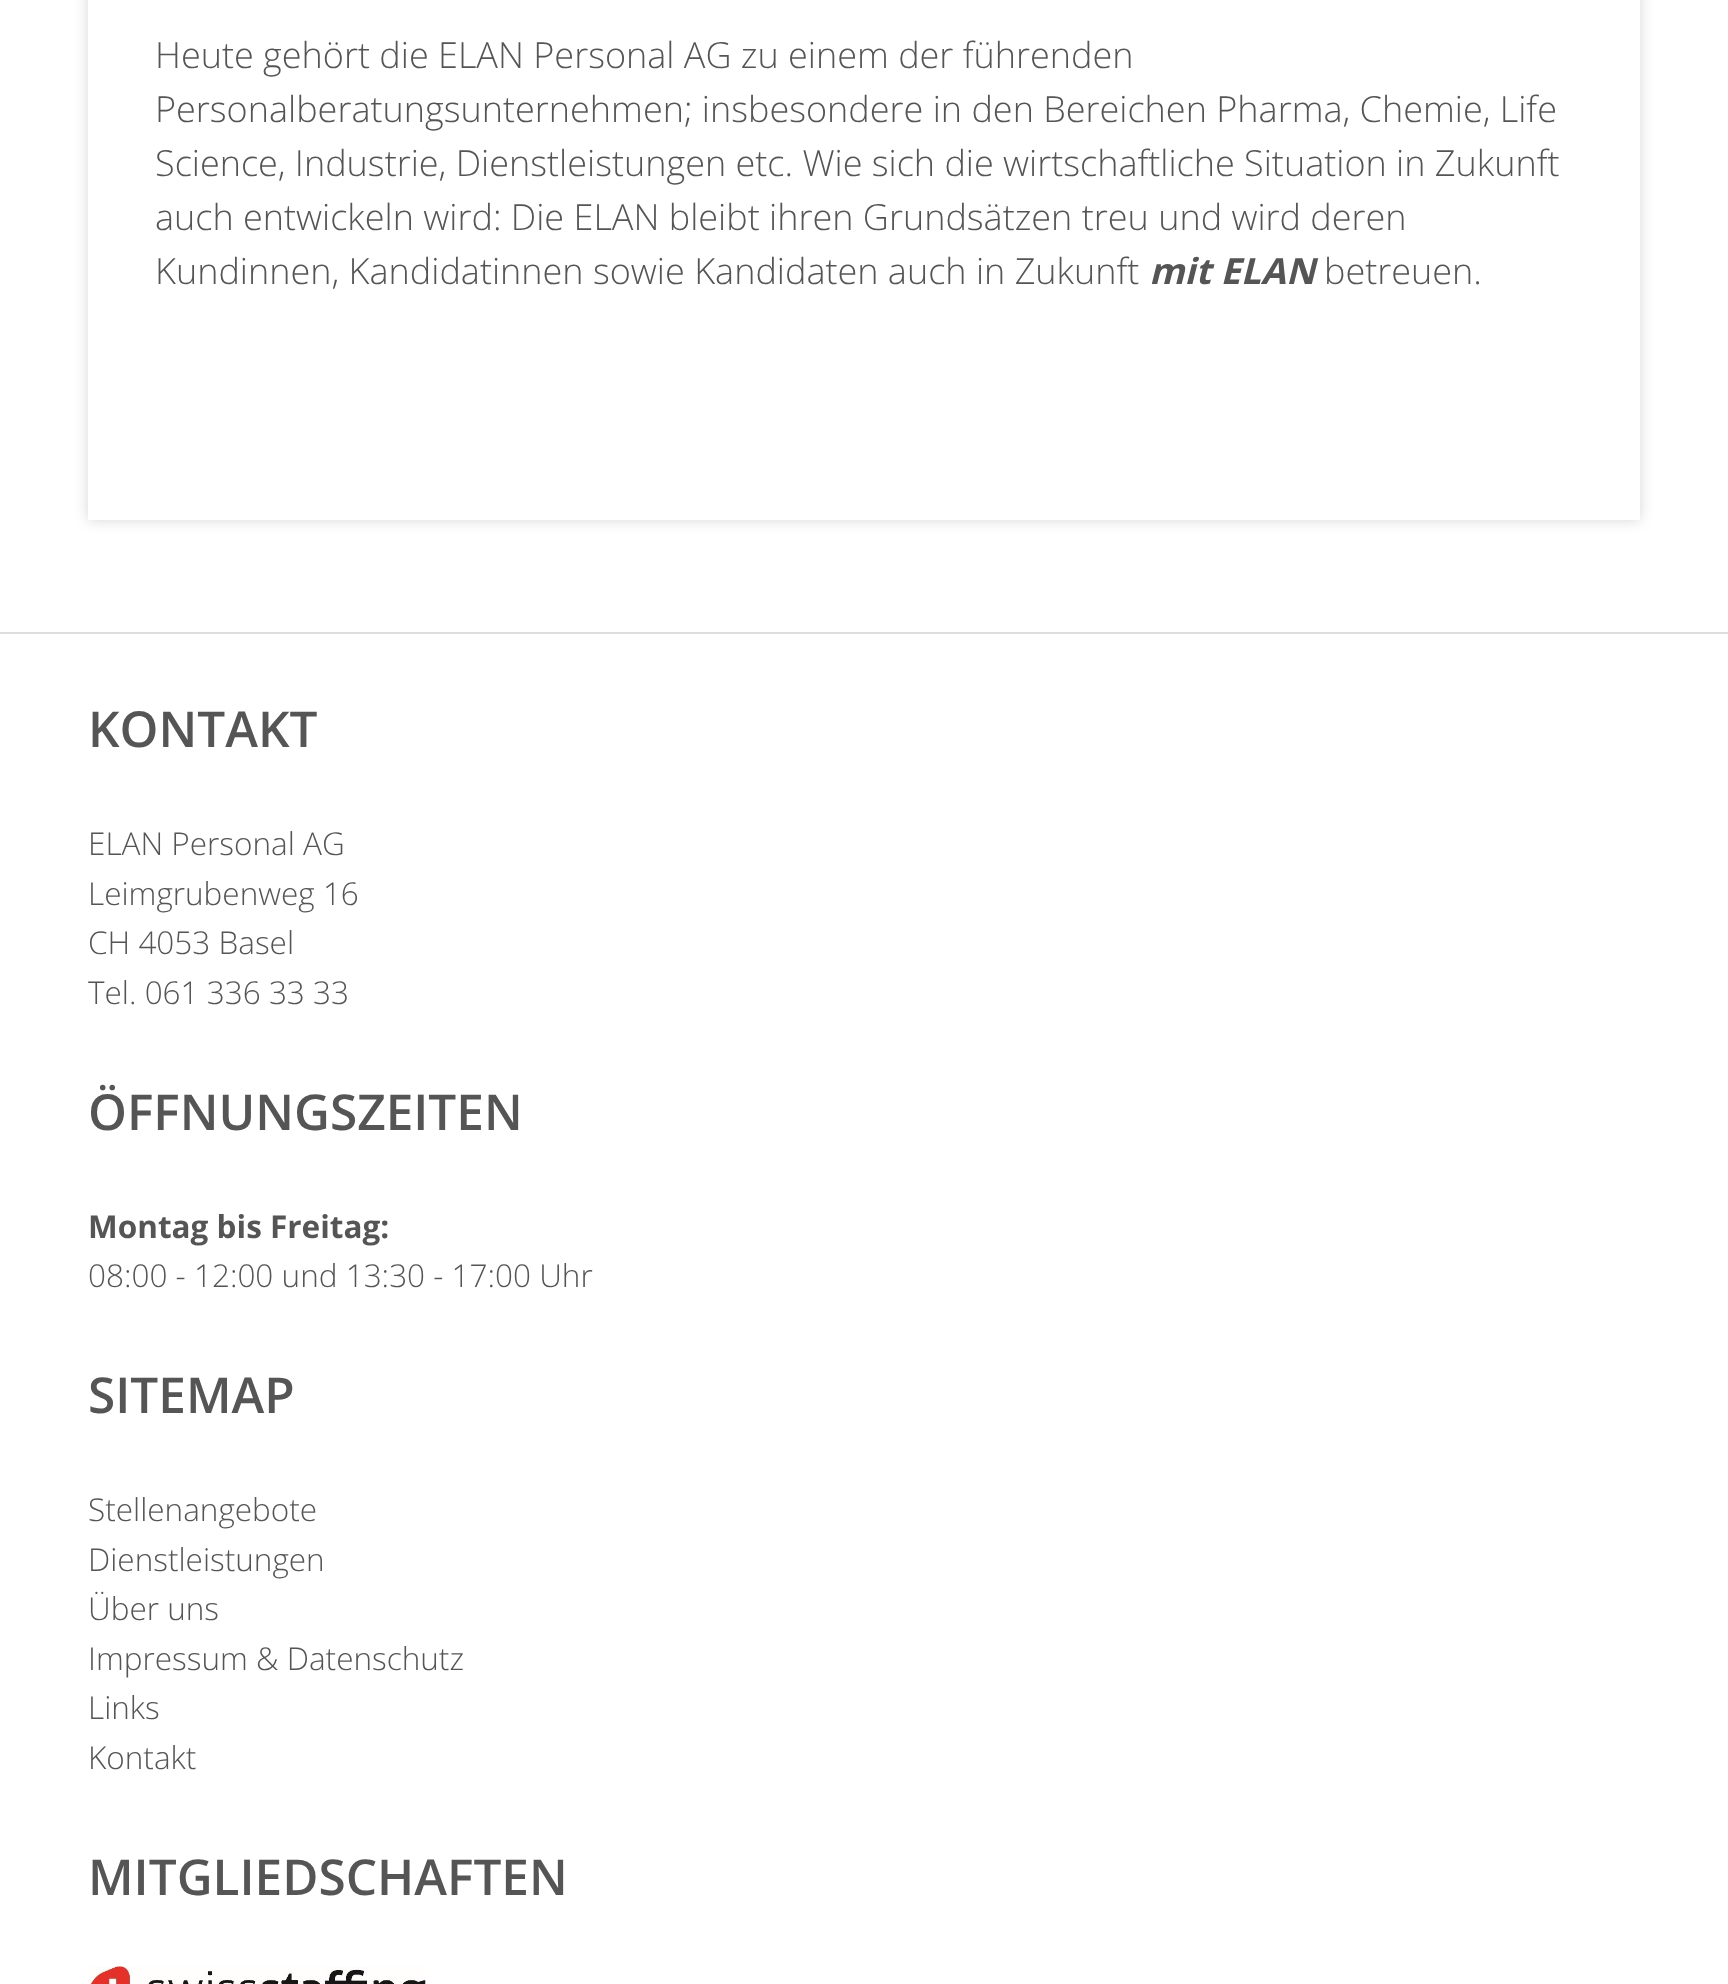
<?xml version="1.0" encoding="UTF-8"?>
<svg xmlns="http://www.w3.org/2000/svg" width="1728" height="1984">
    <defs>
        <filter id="blur1" x="-50%" y="-200%" width="200%" height="500%"><feGaussianBlur stdDeviation="7"/></filter>
    </defs>
    <rect width="100%" height="100%" fill="#FFFFFF"/>
    <rect x="88" y="-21" width="1552" height="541" fill="#000000" fill-opacity="0.16" filter="url(#blur1)"/>
    <rect x="88" y="0" width="1552" height="520" fill="#FFFFFF"/>
    <text font-family="Open Sans" font-size="36" font-weight="300" fill="#555555">
        <tspan x="155" y="68">Heute gehört die ELAN Personal AG zu einem der führenden</tspan>
        <tspan x="155" y="122">Personalberatungsunternehmen; insbesondere in den Bereichen Pharma, Chemie, Life</tspan>
        <tspan x="155" y="176">Science, Industrie, Dienstleistungen etc. Wie sich die wirtschaftliche Situation in Zukunft</tspan>
        <tspan x="155" y="230">auch entwickeln wird: Die ELAN bleibt ihren Grundsätzen treu und wird deren</tspan>
        <tspan x="155" y="284">Kundinnen, Kandidatinnen sowie Kandidaten auch in Zukunft</tspan>
    </text>
    <text x="1149" y="284" font-family="Open Sans" font-size="36" font-weight="700" font-style="italic" fill="#555555">mit ELAN</text>
    <text x="1324" y="284" font-family="Open Sans" font-size="36" font-weight="300" fill="#555555">betreuen.</text>
    <rect x="0" y="632" width="1728" height="2" fill="#DDDDDD"/>
    <text x="88" y="747" font-family="Open Sans" font-size="49.5" font-weight="600" fill="#555555">KONTAKT</text>
    <text font-family="Open Sans" font-size="31.5" font-weight="300" fill="#555555">
        <tspan x="88" y="855">ELAN Personal AG</tspan>
        <tspan x="88" y="905">Leimgrubenweg 16</tspan>
        <tspan x="88" y="954">CH 4053 Basel</tspan>
        <tspan x="88" y="1004">Tel. 061 336 33 33</tspan>
    </text>
    <text x="88" y="1130" font-family="Open Sans" font-size="49.5" font-weight="600" fill="#555555">ÖFFNUNGSZEITEN</text>
    <text x="88" y="1238" font-family="Open Sans" font-size="31.5" font-weight="700" fill="#555555">Montag bis Freitag:</text>
    <text x="88" y="1287" font-family="Open Sans" font-size="31.5" font-weight="300" fill="#555555">08:00 - 12:00 und 13:30 - 17:00 Uhr</text>
    <text x="88" y="1413" font-family="Open Sans" font-size="49.5" font-weight="600" fill="#555555">SITEMAP</text>
    <text font-family="Open Sans" font-size="31.5" font-weight="300" fill="#555555">
        <tspan x="88" y="1521">Stellenangebote</tspan>
        <tspan x="88" y="1571">Dienstleistungen</tspan>
        <tspan x="88" y="1620">Über uns</tspan>
        <tspan x="88" y="1670">Impressum &amp; Datenschutz</tspan>
        <tspan x="88" y="1719">Links</tspan>
        <tspan x="88" y="1769">Kontakt</tspan>
    </text>
    <text x="88" y="1895" font-family="Open Sans" font-size="49.5" font-weight="600" fill="#555555">MITGLIEDSCHAFTEN</text>
    <image x="88" y="1966" width="338" height="18" href="img_01.png"/>
</svg>
